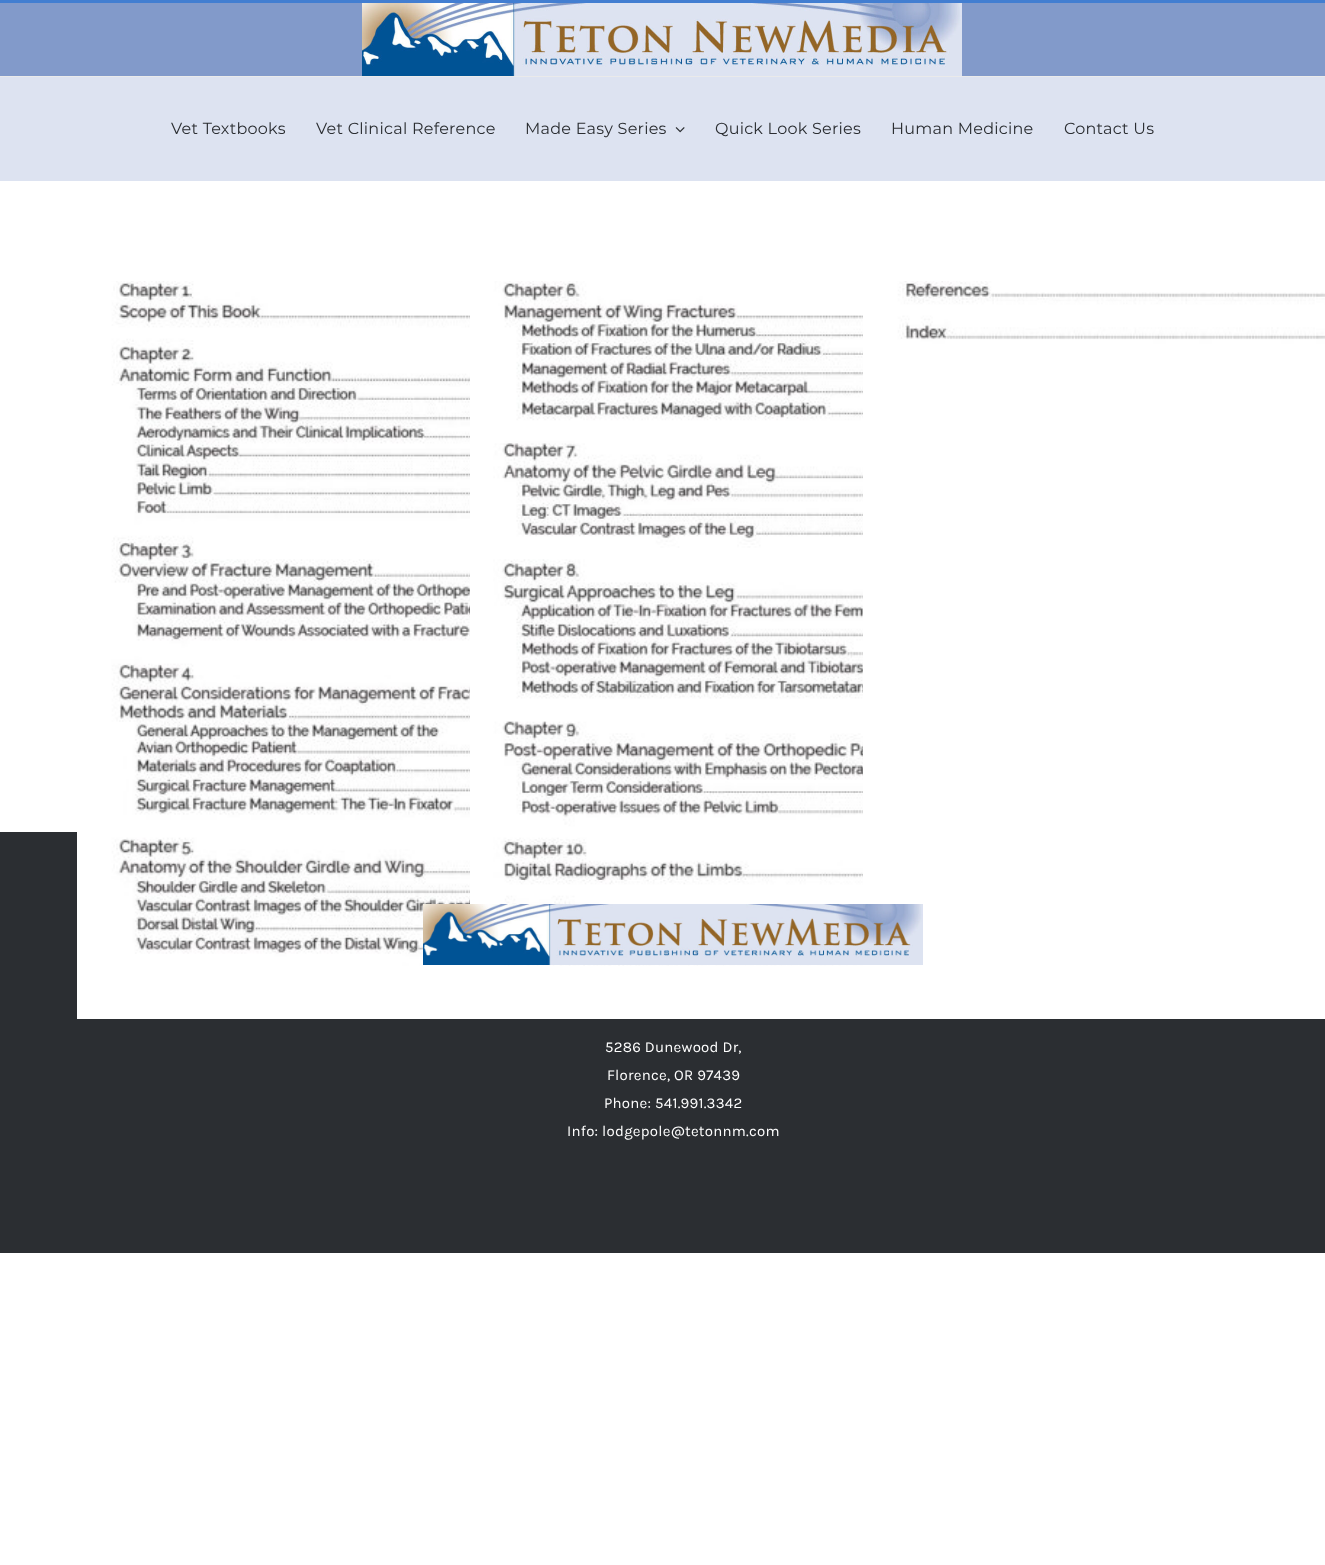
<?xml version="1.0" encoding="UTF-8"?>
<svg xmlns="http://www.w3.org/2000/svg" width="1325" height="1565">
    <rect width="100%" height="100%" fill="#FFFFFF"/>
    <rect x="0" y="3" width="1325" height="73" fill="#829ACA"/>
    <rect x="0" y="0" width="1325" height="3" fill="#427ED1"/>
    <image x="362" y="3" width="600" height="73" href="img_01.png"/>
    <rect x="0" y="77" width="1325" height="104" fill="#DDE3F1"/>
    <rect x="0" y="76" width="1325" height="1" fill="#EAEAEA"/>
    <text x="171" y="134" font-family="Montserrat" font-size="16" font-weight="100" letter-spacing="0.25" fill="#2B2E32">Vet Textbooks</text>
    <text x="316" y="134" font-family="Montserrat" font-size="16" font-weight="100" letter-spacing="0.25" fill="#2B2E32">Vet Clinical Reference</text>
    <text x="525" y="134" font-family="Montserrat" font-size="16" font-weight="100" letter-spacing="0.25" fill="#2B2E32">Made Easy Series</text>
    <image x="675" y="127" width="10" height="6" href="img_02.png"/>
    <text x="715" y="134" font-family="Montserrat" font-size="16" font-weight="100" letter-spacing="0.25" fill="#2B2E32">Quick Look Series</text>
    <text x="891" y="134" font-family="Montserrat" font-size="16" font-weight="100" letter-spacing="0.25" fill="#2B2E32">Human Medicine</text>
    <text x="1064" y="134" font-family="Montserrat" font-size="16" font-weight="100" letter-spacing="0.25" fill="#2B2E32">Contact Us</text>
    <rect x="0" y="832" width="1325" height="421" fill="#2B2E32"/>
    <image x="77" y="281" width="393" height="738" href="img_03.png"/>
    <image x="470" y="281" width="393" height="738" href="img_04.png"/>
    <image x="863" y="281" width="462" height="738" href="img_05.png"/>
    <image x="423" y="904" width="500" height="61" href="img_06.png"/>
    <text x="605" y="1052" font-family="Karla" font-size="15" letter-spacing="0.25" fill="#FFFFFF">5286 Dunewood Dr,</text>
    <text x="607" y="1080" font-family="Karla" font-size="15" letter-spacing="0.25" fill="#FFFFFF">Florence, OR 97439</text>
    <text x="604" y="1108" font-family="Karla" font-size="15" letter-spacing="0.25" fill="#FFFFFF">Phone: 541.991.3342</text>
    <text x="567" y="1136" font-family="Karla" font-size="15" letter-spacing="0.25" fill="#FFFFFF">Info: lodgepole@tetonnm.com</text>
</svg>
